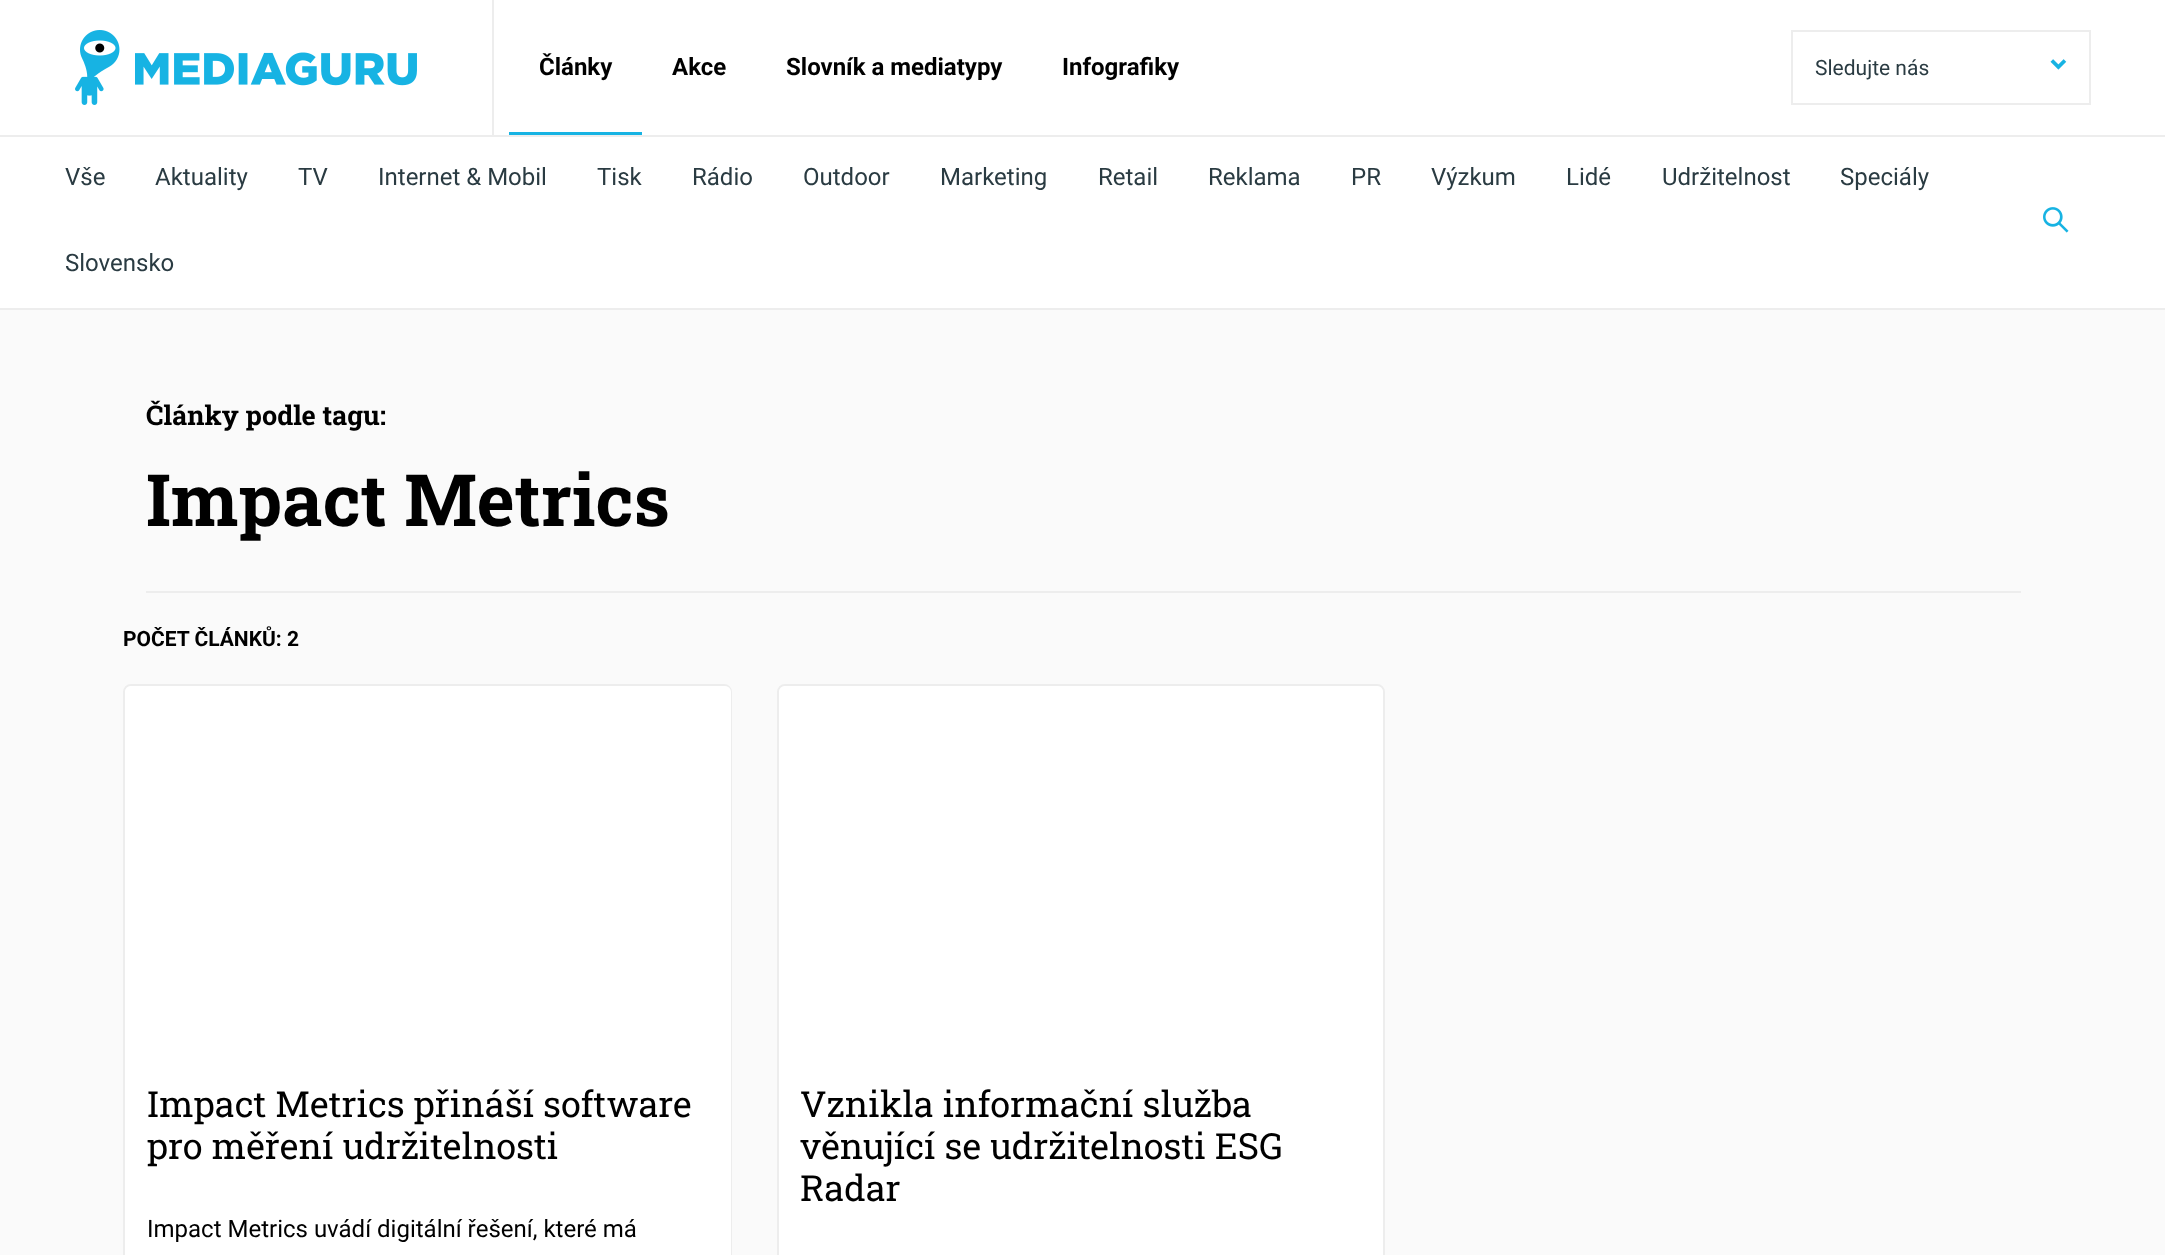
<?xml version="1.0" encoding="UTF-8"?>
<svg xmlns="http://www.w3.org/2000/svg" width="2165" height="1255">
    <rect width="100%" height="100%" fill="#FAFAFA"/>
    <rect x="0" y="0" width="2165" height="308" fill="#FFFFFF"/>
    <rect x="492" y="0" width="2" height="135" fill="#EDEDED"/>
    <image x="75" y="30" width="342" height="75" href="img_01.png"/>
    <rect x="509" y="132" width="133" height="3" fill="#17B3E3"/>
    <text x="539" y="75" font-family="Roboto" font-size="24" font-weight="700" fill="#000000">Články</text>
    <text x="672" y="75" font-family="Roboto" font-size="24" font-weight="700" fill="#000000">Akce</text>
    <text x="786" y="75" font-family="Roboto" font-size="24" font-weight="700" fill="#000000">Slovník a mediatypy</text>
    <text x="1062" y="75" font-family="Roboto" font-size="24" font-weight="700" fill="#000000">Infografiky</text>
    <rect x="1792" y="31" width="298" height="73" fill="none" stroke="#EDEDED" stroke-width="2"/>
    <text x="1815" y="75" font-family="Roboto" font-size="21" fill="#2A3B42">Sledujte nás</text>
    <image x="2050" y="59" width="17" height="11" href="img_02.png"/>
    <rect x="0" y="135" width="2165" height="2" fill="#EDEDED"/>
    <rect x="0" y="308" width="2165" height="2" fill="#EDEDED"/>
    <text x="65" y="185" font-family="Roboto" font-size="24" fill="#2A3B42">Vše</text>
    <text x="155" y="185" font-family="Roboto" font-size="24" fill="#2A3B42">Aktuality</text>
    <text x="298" y="185" font-family="Roboto" font-size="24" fill="#2A3B42">TV</text>
    <text x="378" y="185" font-family="Roboto" font-size="24" fill="#2A3B42">Internet &amp; Mobil</text>
    <text x="597" y="185" font-family="Roboto" font-size="24" fill="#2A3B42">Tisk</text>
    <text x="692" y="185" font-family="Roboto" font-size="24" fill="#2A3B42">Rádio</text>
    <text x="803" y="185" font-family="Roboto" font-size="24" fill="#2A3B42">Outdoor</text>
    <text x="940" y="185" font-family="Roboto" font-size="24" fill="#2A3B42">Marketing</text>
    <text x="1098" y="185" font-family="Roboto" font-size="24" fill="#2A3B42">Retail</text>
    <text x="1208" y="185" font-family="Roboto" font-size="24" fill="#2A3B42">Reklama</text>
    <text x="1351" y="185" font-family="Roboto" font-size="24" fill="#2A3B42">PR</text>
    <text x="1431" y="185" font-family="Roboto" font-size="24" fill="#2A3B42">Výzkum</text>
    <text x="1566" y="185" font-family="Roboto" font-size="24" fill="#2A3B42">Lidé</text>
    <text x="1662" y="185" font-family="Roboto" font-size="24" fill="#2A3B42">Udržitelnost</text>
    <text x="1840" y="185" font-family="Roboto" font-size="24" fill="#2A3B42">Speciály</text>
    <text x="65" y="271" font-family="Roboto" font-size="24" fill="#2A3B42">Slovensko</text>
    <image x="2043" y="207" width="26" height="26" href="img_03.png"/>
    <text x="146" y="425" font-family="Roboto Slab" font-size="27" font-weight="700" fill="#000000">Články podle tagu:</text>
    <rect x="146" y="591" width="1875" height="2" fill="#EDEDED"/>
    <text x="146" y="526" font-family="Roboto Slab" font-size="72" font-weight="700" fill="#000000">Impact Metrics</text>
    <text x="123" y="646" font-family="Roboto" font-size="21" font-weight="700" fill="#000000">POČET ČLÁNKŮ: 2</text>
    <rect x="124" y="685" width="607" height="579" rx="7" fill="none" stroke="#EDEDED" stroke-width="2"/>
    <rect x="125" y="686" width="606" height="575" rx="6" fill="#FFFFFF"/>
    <text font-family="Roboto Slab" font-size="36" fill="#000000">
        <tspan x="147" y="1117">Impact Metrics přináší software</tspan>
        <tspan x="147" y="1159">pro měření udržitelnosti</tspan>
    </text>
    <text x="147" y="1237" font-family="Roboto" font-size="24" fill="#000000">Impact Metrics uvádí digitální řešení, které má</text>
    <rect x="778" y="685" width="606" height="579" rx="7" fill="none" stroke="#EDEDED" stroke-width="2"/>
    <rect x="779" y="686" width="604" height="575" rx="6" fill="#FFFFFF"/>
    <text font-family="Roboto Slab" font-size="36" fill="#000000">
        <tspan x="800" y="1117">Vznikla informační služba</tspan>
        <tspan x="800" y="1159">věnující se udržitelnosti ESG</tspan>
        <tspan x="800" y="1201">Radar</tspan>
    </text>
</svg>
